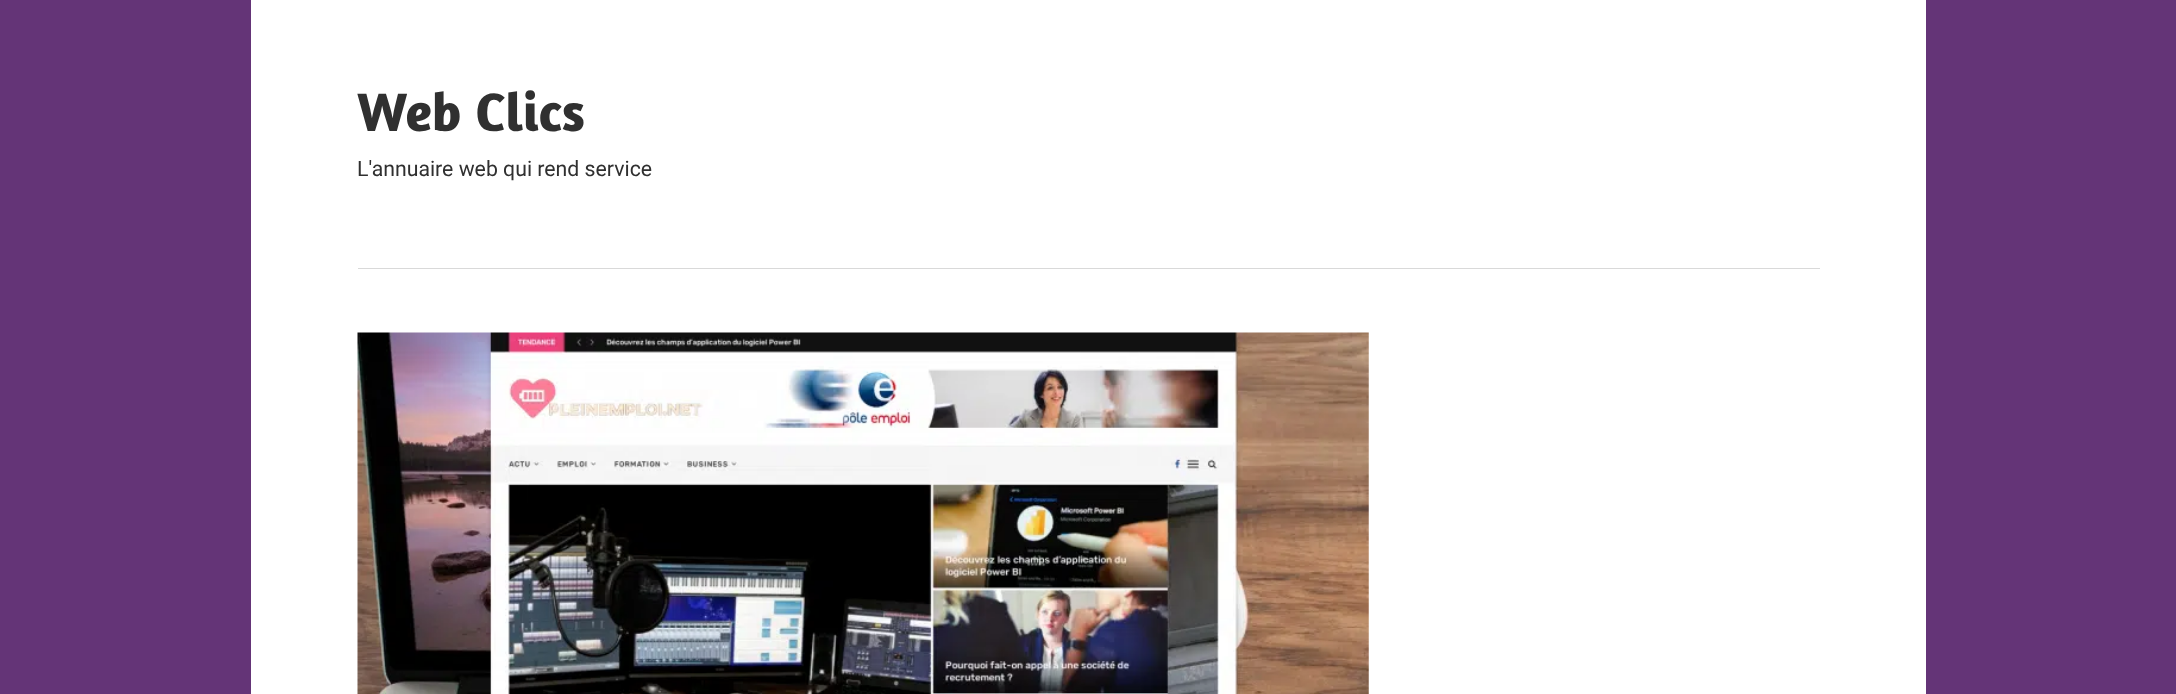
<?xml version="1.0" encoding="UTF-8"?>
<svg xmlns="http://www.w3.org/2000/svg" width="2176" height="694">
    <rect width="100%" height="100%" fill="#643477"/>
    <rect x="251" y="0" width="1675" height="694" fill="#FFFFFF"/>
    <text x="357" y="131" font-family="Amaranth" font-size="55" font-weight="700" fill="#303030">Web Clics</text>
    <text x="357" y="176" font-family="Roboto" font-size="21.25" fill="#303030">L'annuaire web qui rend service</text>
    <rect x="358" y="268" width="1462" height="1" fill="#D9D9D9"/>
    <image x="357" y="332" width="1012" height="362" href="img_01.png"/>
</svg>
